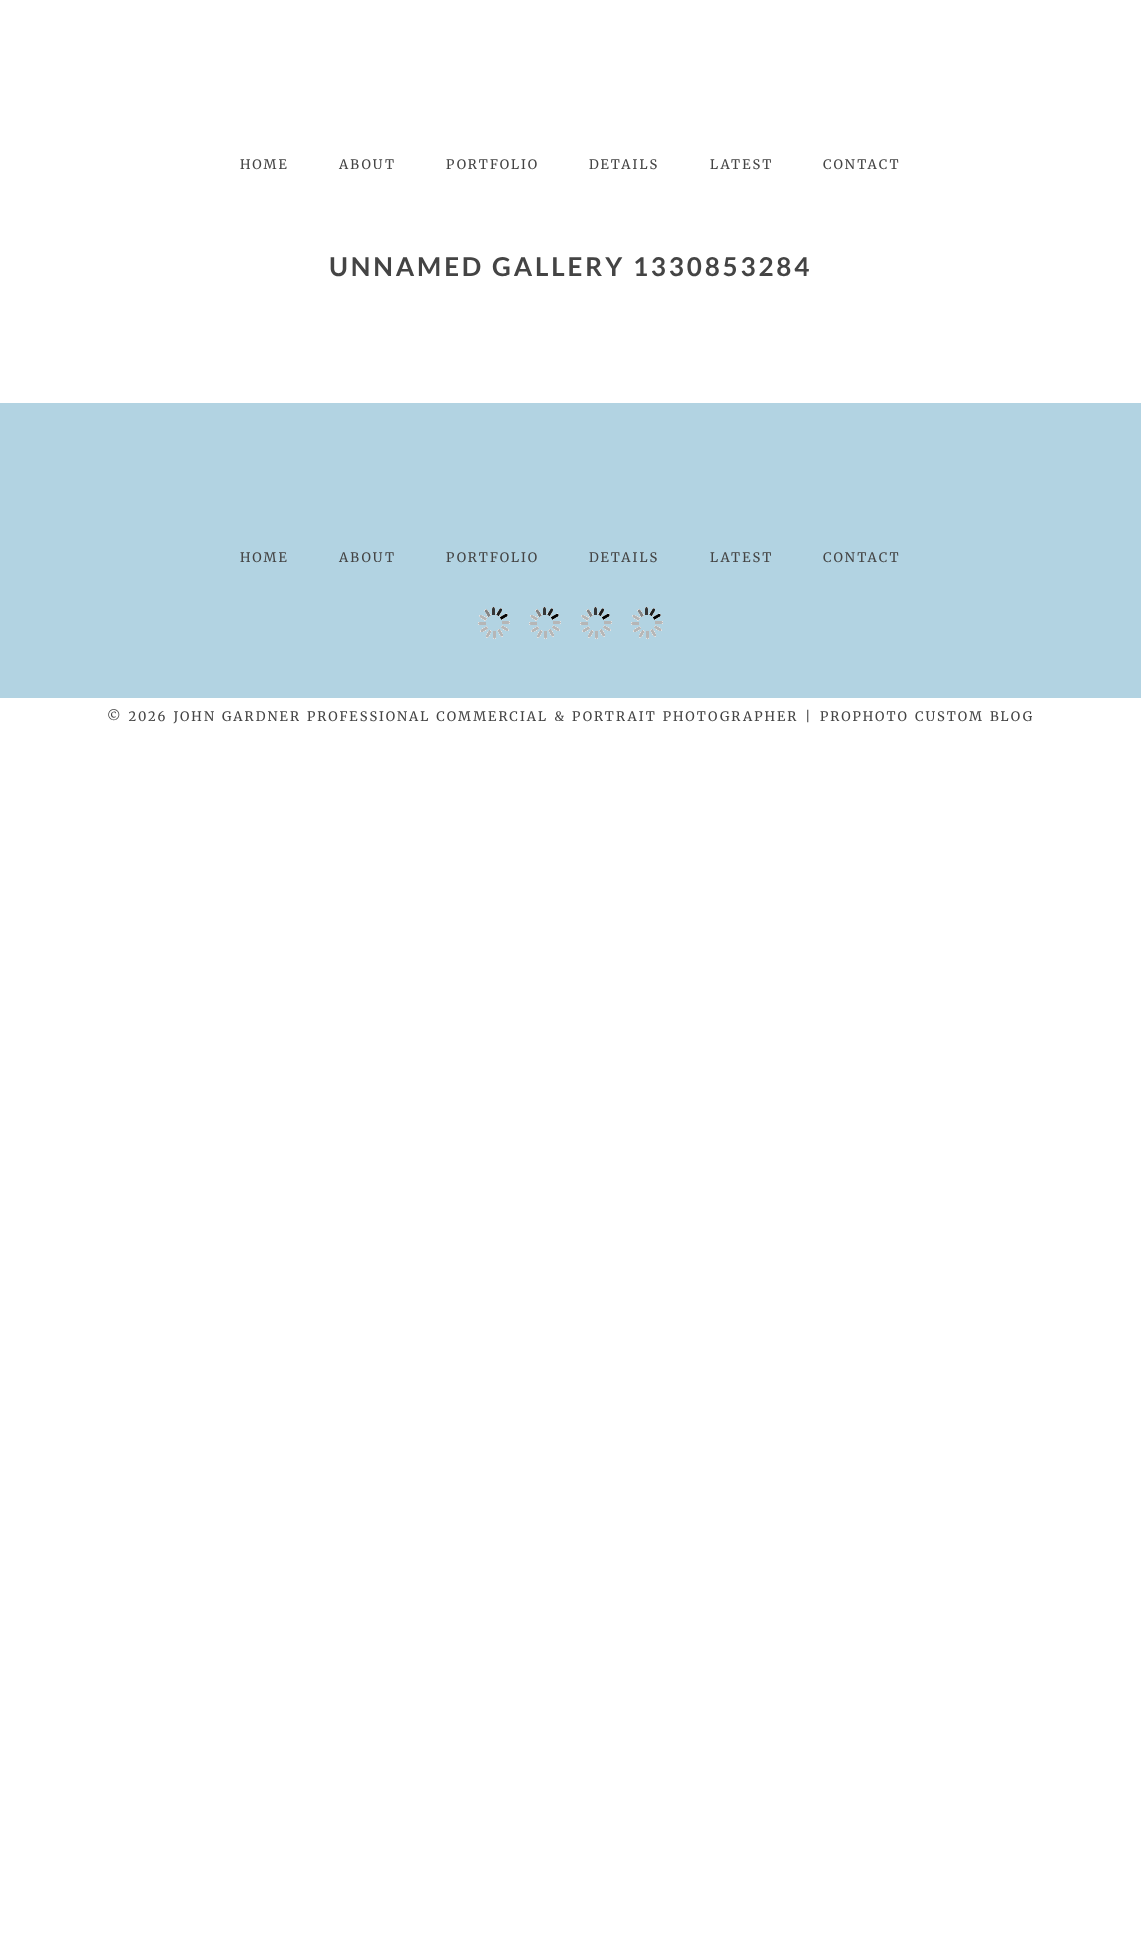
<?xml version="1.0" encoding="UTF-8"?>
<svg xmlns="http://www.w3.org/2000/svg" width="1141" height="1954">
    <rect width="100%" height="100%" fill="#FFFFFF"/>
    <text x="240" y="169" font-family="Merriweather" font-size="13" font-weight="300" letter-spacing="2.08" fill="#444444">HOME</text>
    <text x="339" y="169" font-family="Merriweather" font-size="13" font-weight="300" letter-spacing="2.08" fill="#444444">ABOUT</text>
    <text x="446" y="169" font-family="Merriweather" font-size="13" font-weight="300" letter-spacing="2.08" fill="#444444">PORTFOLIO</text>
    <text x="589" y="169" font-family="Merriweather" font-size="13" font-weight="300" letter-spacing="2.08" fill="#444444">DETAILS</text>
    <text x="710" y="169" font-family="Merriweather" font-size="13" font-weight="300" letter-spacing="2.08" fill="#444444">LATEST</text>
    <text x="823" y="169" font-family="Merriweather" font-size="13" font-weight="300" letter-spacing="2.08" fill="#444444">CONTACT</text>
    <text x="329" y="276" font-family="Lato" font-size="26" font-weight="700" letter-spacing="2.85" fill="#444444">UNNAMED GALLERY 1330853284</text>
    <rect x="0" y="403" width="1141" height="295" fill="#B2D3E2"/>
    <text x="240" y="562" font-family="Merriweather" font-size="13" font-weight="300" letter-spacing="2.08" fill="#444444">HOME</text>
    <text x="339" y="562" font-family="Merriweather" font-size="13" font-weight="300" letter-spacing="2.08" fill="#444444">ABOUT</text>
    <text x="446" y="562" font-family="Merriweather" font-size="13" font-weight="300" letter-spacing="2.08" fill="#444444">PORTFOLIO</text>
    <text x="589" y="562" font-family="Merriweather" font-size="13" font-weight="300" letter-spacing="2.08" fill="#444444">DETAILS</text>
    <text x="710" y="562" font-family="Merriweather" font-size="13" font-weight="300" letter-spacing="2.08" fill="#444444">LATEST</text>
    <text x="823" y="562" font-family="Merriweather" font-size="13" font-weight="300" letter-spacing="2.08" fill="#444444">CONTACT</text>
    <image x="478" y="607" width="32" height="32" href="img_01.png"/>
    <image x="529" y="607" width="32" height="32" href="img_01.png"/>
    <image x="580" y="607" width="32" height="32" href="img_01.png"/>
    <image x="631" y="607" width="32" height="32" href="img_01.png"/>
    <text x="107" y="721" word-spacing="0.75" font-family="Merriweather" font-size="13" font-weight="300" letter-spacing="2.08" fill="#444444">© 2026 JOHN GARDNER PROFESSIONAL COMMERCIAL &amp; PORTRAIT PHOTOGRAPHER</text>
    <text x="805" y="721" font-family="Merriweather" font-size="13" font-weight="300" letter-spacing="2.08" fill="#444444">|</text>
    <text x="820" y="721" word-spacing="0.75" font-family="Merriweather" font-size="13" font-weight="300" letter-spacing="2.08" fill="#444444">PROPHOTO CUSTOM BLOG</text>
</svg>
